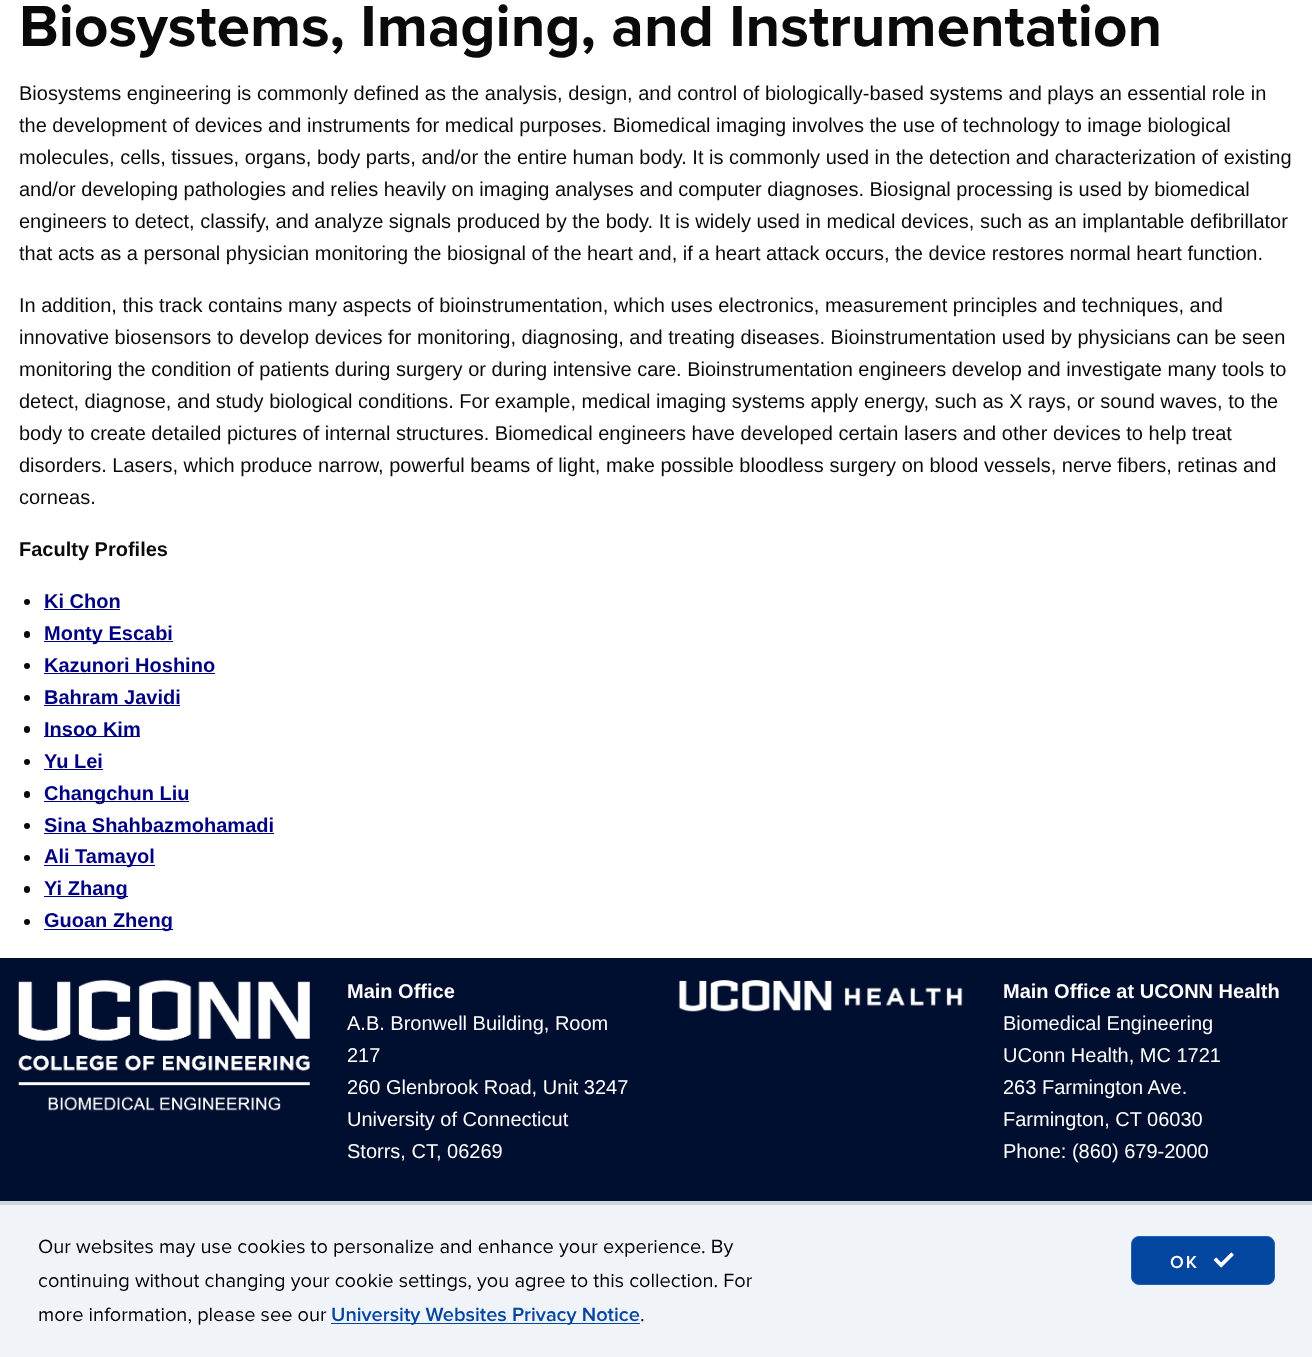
<?xml version="1.0" encoding="UTF-8"?>
<svg xmlns="http://www.w3.org/2000/svg" width="1312" height="1357">
    <rect width="100%" height="100%" fill="#000E2F"/>
    <rect x="0" y="0" width="1312" height="958" fill="#FFFFFF"/>
    <text x="19" y="46" font-family="Proxima Nova" font-size="60" font-weight="700" fill="#0A0A0A">Biosystems, Imaging, and Instrumentation</text>
    <text font-family="Liberation Sans" font-size="20" fill="#0A0A0A">
        <tspan x="19" y="100">Biosystems engineering is commonly defined as the analysis, design, and control of biologically-based systems and plays an essential role in</tspan>
        <tspan x="19" y="132">the development of devices and instruments for medical purposes. Biomedical imaging involves the use of technology to image biological</tspan>
        <tspan x="19" y="164">molecules, cells, tissues, organs, body parts, and/or the entire human body. It is commonly used in the detection and characterization of existing</tspan>
        <tspan x="19" y="196">and/or developing pathologies and relies heavily on imaging analyses and computer diagnoses. Biosignal processing is used by biomedical</tspan>
        <tspan x="19" y="228">engineers to detect, classify, and analyze signals produced by the body. It is widely used in medical devices, such as an implantable defibrillator</tspan>
        <tspan x="19" y="260">that acts as a personal physician monitoring the biosignal of the heart and, if a heart attack occurs, the device restores normal heart function.</tspan>
    </text>
    <text font-family="Liberation Sans" font-size="20" fill="#0A0A0A">
        <tspan x="19" y="312">In addition, this track contains many aspects of bioinstrumentation, which uses electronics, measurement principles and techniques, and</tspan>
        <tspan x="19" y="344">innovative biosensors to develop devices for monitoring, diagnosing, and treating diseases. Bioinstrumentation used by physicians can be seen</tspan>
        <tspan x="19" y="376">monitoring the condition of patients during surgery or during intensive care. Bioinstrumentation engineers develop and investigate many tools to</tspan>
        <tspan x="19" y="408">detect, diagnose, and study biological conditions. For example, medical imaging systems apply energy, such as X rays, or sound waves, to the</tspan>
        <tspan x="19" y="440">body to create detailed pictures of internal structures. Biomedical engineers have developed certain lasers and other devices to help treat</tspan>
        <tspan x="19" y="472">disorders. Lasers, which produce narrow, powerful beams of light, make possible bloodless surgery on blood vessels, nerve fibers, retinas and</tspan>
        <tspan x="19" y="504">corneas.</tspan>
    </text>
    <text x="19" y="556" font-family="Liberation Sans" font-size="20" font-weight="700" fill="#0A0A0A">Faculty Profiles</text>
    <circle cx="27" cy="602" r="3" fill="#0A0A0A"/>
    <text x="44" y="608" font-family="Liberation Sans" font-size="20" font-weight="700" fill="#000080">Ki Chon</text>
    <rect x="44" y="609" width="76" height="1" fill="#000080"/>
    <rect x="24" y="631" width="6" height="7" rx="3" fill="#0A0A0A"/>
    <rect x="44" y="641" width="129" height="1" fill="#000080"/>
    <text x="44" y="640" font-family="Liberation Sans" font-size="20" font-weight="700" fill="#000080">Monty Escabi</text>
    <circle cx="27" cy="666" r="3" fill="#0A0A0A"/>
    <text x="44" y="672" font-family="Liberation Sans" font-size="20" font-weight="700" fill="#000080">Kazunori Hoshino</text>
    <rect x="44" y="673" width="171" height="1" fill="#000080"/>
    <circle cx="27" cy="698" r="3" fill="#0A0A0A"/>
    <text x="44" y="704" font-family="Liberation Sans" font-size="20" font-weight="700" fill="#000080">Bahram Javidi</text>
    <rect x="44" y="705" width="136" height="1" fill="#000080"/>
    <rect x="24" y="726" width="6" height="7" rx="3" fill="#0A0A0A"/>
    <rect x="44" y="736" width="96" height="1" fill="#000080"/>
    <text x="44" y="736" font-family="Liberation Sans" font-size="20" font-weight="700" fill="#000080">Insoo Kim</text>
    <circle cx="27" cy="762" r="3" fill="#0A0A0A"/>
    <text x="44" y="768" font-family="Liberation Sans" font-size="20" font-weight="700" fill="#000080">Yu Lei</text>
    <rect x="44" y="769" width="59" height="1" fill="#000080"/>
    <rect x="24" y="791" width="6" height="7" rx="3" fill="#0A0A0A"/>
    <rect x="44" y="801" width="145" height="1" fill="#000080"/>
    <text x="44" y="800" font-family="Liberation Sans" font-size="20" font-weight="700" fill="#000080">Changchun Liu</text>
    <circle cx="27" cy="826" r="3" fill="#0A0A0A"/>
    <text x="44" y="832" font-family="Liberation Sans" font-size="20" font-weight="700" fill="#000080">Sina Shahbazmohamadi</text>
    <rect x="44" y="833" width="230" height="1" fill="#000080"/>
    <circle cx="27" cy="858" r="3" fill="#0A0A0A"/>
    <rect x="44" y="865" width="111" height="1" fill="#000080"/>
    <text x="44" y="863" font-family="Liberation Sans" font-size="20" font-weight="700" fill="#000080">Ali Tamayol</text>
    <rect x="24" y="886" width="6" height="7" rx="3" fill="#0A0A0A"/>
    <rect x="44" y="896" width="84" height="1" fill="#000080"/>
    <text x="44" y="895" font-family="Liberation Sans" font-size="20" font-weight="700" fill="#000080">Yi Zhang</text>
    <circle cx="27" cy="922" r="3" fill="#0A0A0A"/>
    <rect x="44" y="929" width="129" height="1" fill="#000080"/>
    <text x="44" y="927" font-family="Liberation Sans" font-size="20" font-weight="700" fill="#000080">Guoan Zheng</text>
    <image x="18" y="979" width="292" height="132" href="img_01.png"/>
    <text x="347" y="998" font-family="Liberation Sans" font-size="20" font-weight="700" fill="#FFFFFF">Main Office</text>
    <text font-family="Liberation Sans" font-size="20" fill="#FFFFFF">
        <tspan x="347" y="1030">A.B. Bronwell Building, Room</tspan>
        <tspan x="347" y="1062">217</tspan>
        <tspan x="347" y="1094">260 Glenbrook Road, Unit 3247</tspan>
        <tspan x="347" y="1126">University of Connecticut</tspan>
        <tspan x="347" y="1158">Storrs, CT, 06269</tspan>
    </text>
    <image x="678" y="980" width="285" height="32" href="img_02.png"/>
    <text x="1003" y="998" font-family="Liberation Sans" font-size="20" font-weight="700" fill="#FFFFFF">Main Office at UCONN Health</text>
    <text font-family="Liberation Sans" font-size="20" fill="#FFFFFF">
        <tspan x="1003" y="1030">Biomedical Engineering</tspan>
        <tspan x="1003" y="1062">UConn Health, MC 1721</tspan>
        <tspan x="1003" y="1094">263 Farmington Ave.</tspan>
        <tspan x="1003" y="1126">Farmington, CT 06030</tspan>
        <tspan x="1003" y="1158">Phone: (860) 679-2000</tspan>
    </text>
    <rect x="0" y="1205" width="1312" height="152" fill="#F0F3F7"/>
    <rect x="0" y="1201" width="1312" height="4" fill="#CFD5DD"/>
    <text font-family="Proxima Nova" font-size="20" fill="#000000">
        <tspan x="38" y="1253">Our websites may use cookies to personalize and enhance your experience. By</tspan>
        <tspan x="38" y="1287">continuing without changing your cookie settings, you agree to this collection. For</tspan>
        <tspan x="38" y="1321">more information, please see our</tspan>
    </text>
    <rect x="331" y="1323" width="309" height="1" fill="#03469F"/>
    <text x="331" y="1321" font-family="Proxima Nova" font-size="20" font-weight="600" fill="#03469F">University Websites Privacy Notice</text>
    <text x="640" y="1321" font-family="Proxima Nova" font-size="20" fill="#000000">.</text>
    <rect x="1131.5" y="1236.5" width="143" height="48" rx="7.5" fill="#03469F" stroke="#2061B6"/>
    <text x="1170" y="1268" font-family="Proxima Nova" font-size="18" font-weight="600" letter-spacing="2" fill="#FFFFFF">OK</text>
    <image x="1213" y="1252" width="21" height="16" href="img_03.png"/>
</svg>
